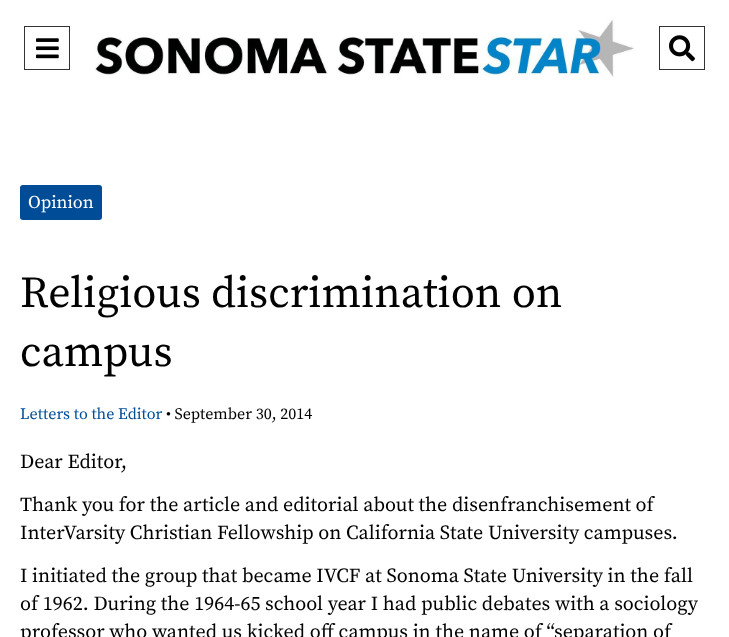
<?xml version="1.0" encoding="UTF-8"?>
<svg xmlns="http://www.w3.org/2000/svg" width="729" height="637">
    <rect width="100%" height="100%" fill="#FFFFFF"/>
    <rect x="24.5" y="26.5" width="45" height="43" fill="none" stroke="#333333"/>
    <image x="36" y="38" width="23" height="21" href="img_01.png"/>
    <image x="95" y="19" width="539" height="59" href="img_02.png"/>
    <rect x="659.5" y="26.5" width="45" height="43" fill="none" stroke="#333333"/>
    <image x="669" y="35" width="26" height="27" href="img_03.png"/>
    <rect x="20" y="185" width="82" height="35" rx="3" fill="#004C97"/>
    <text x="28" y="208" font-family="Source Serif Pro" font-size="18" fill="#FFFFFF">Opinion</text>
    <text font-family="Source Serif Pro" font-size="44" fill="#000000">
        <tspan x="20" y="307">Religious discrimination on</tspan>
        <tspan x="20" y="366">campus</tspan>
    </text>
    <text x="20" y="419" font-family="Source Serif Pro" font-size="16" fill="#004C97">Letters to the Editor</text>
    <text x="166" y="419" font-family="Source Serif Pro" font-size="16" fill="#000000">• September 30, 2014</text>
    <text x="20" y="468" font-family="Source Serif Pro" font-size="20" fill="#000000">Dear Editor,</text>
    <text font-family="Source Serif Pro" font-size="20" fill="#000000">
        <tspan x="20" y="511">Thank you for the article and editorial about the disenfranchisement of</tspan>
        <tspan x="20" y="539">InterVarsity Christian Fellowship on California State University campuses.</tspan>
    </text>
    <text font-family="Source Serif Pro" font-size="20" fill="#000000">
        <tspan x="20" y="582">I initiated the group that became IVCF at Sonoma State University in the fall</tspan>
        <tspan x="20" y="610">of 1962. During the 1964-65 school year I had public debates with a sociology</tspan>
        <tspan x="20" y="638">professor who wanted us kicked off campus in the name of “separation of</tspan>
    </text>
</svg>
